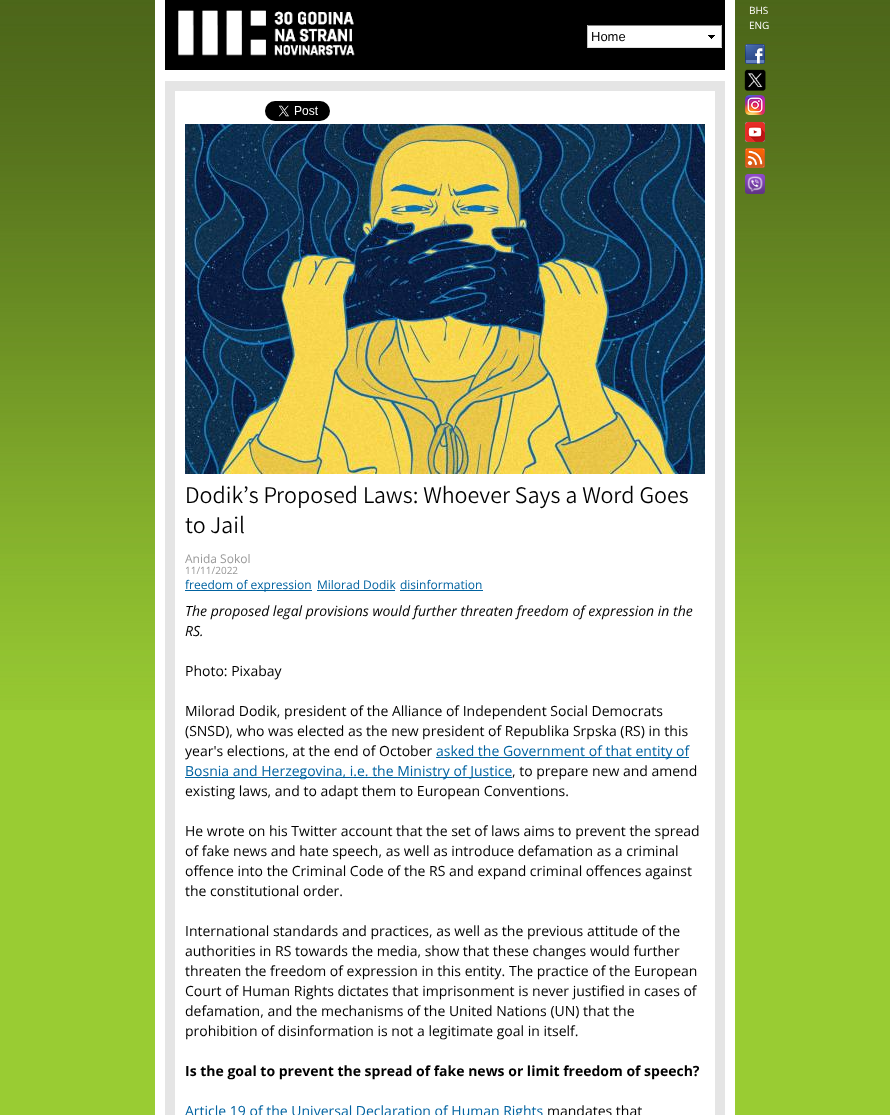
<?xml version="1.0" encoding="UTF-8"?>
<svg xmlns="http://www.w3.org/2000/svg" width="890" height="1115">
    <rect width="100%" height="100%" fill="#99CC33"/>
    <image x="0" y="0" width="890" height="710" href="img_01.png"/>
    <rect x="155" y="0" width="580" height="1115" fill="#FFFFFF"/>
    <rect x="165" y="0" width="560" height="70" fill="#000000"/>
    <image x="178" y="10" width="177" height="46" href="img_02.png"/>
    <rect x="588" y="26" width="133" height="21" fill="#FFFFFF"/>
    <image x="708" y="35" width="7" height="4" href="img_03.png"/>
    <rect x="587" y="25" width="135" height="1" fill="#848484"/>
    <rect x="721" y="25" width="1" height="23" fill="#C1C1C1"/>
    <rect x="587" y="47" width="135" height="1" fill="#E1E1E1"/>
    <rect x="587" y="25" width="1" height="23" fill="#C1C1C1"/>
    <text x="591" y="41" font-family="Liberation Sans" font-size="13" fill="#000000">Home</text>
    <text font-family="Open Sans" font-size="10" fill="#FFFFFF">
        <tspan x="749" y="14">BHS</tspan>
        <tspan x="749" y="29">ENG</tspan>
    </text>
    <image x="745" y="44" width="20" height="20" href="img_04.png"/>
    <image x="744" y="69" width="22" height="22" href="img_05.png"/>
    <image x="745" y="95" width="20" height="20" href="img_06.png"/>
    <image x="745" y="122" width="20" height="20" href="img_07.png"/>
    <image x="745" y="148" width="20" height="20" href="img_08.png"/>
    <image x="745" y="174" width="20" height="20" href="img_09.png"/>
    <rect x="170" y="86" width="550" height="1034" fill="none" stroke="#E5E5E5" stroke-width="10"/>
    <image x="265" y="101" width="65" height="20" href="img_10.png"/>
    <image x="185" y="124" width="520" height="350" href="img_11.png"/>
    <text font-family="Varta" font-size="24" font-weight="300" fill="#000000">
        <tspan x="185" y="503">Dodik’s Proposed Laws: Whoever Says a Word Goes</tspan>
        <tspan x="185" y="533">to Jail</tspan>
    </text>
    <text x="185" y="563" font-family="Open Sans" font-size="12" fill="#999999">Anida Sokol</text>
    <text x="185" y="574" font-family="Open Sans" font-size="10" fill="#999999">11/11/2022</text>
    <rect x="185" y="590" width="127" height="1" fill="#0062A0"/>
    <text x="185" y="589" font-family="Open Sans" font-size="12" fill="#0062A0">freedom of expression</text>
    <text x="317" y="589" font-family="Open Sans" font-size="12" fill="#0062A0">Milorad Dodik</text>
    <rect x="317" y="590" width="78" height="1" fill="#0062A0"/>
    <text x="400" y="589" font-family="Open Sans" font-size="12" fill="#0062A0">disinformation</text>
    <rect x="400" y="590" width="83" height="1" fill="#0062A0"/>
    <text font-family="Open Sans" font-size="14" font-style="italic" fill="#000000">
        <tspan x="185" y="616">The proposed legal provisions would further threaten freedom of expression in the</tspan>
        <tspan x="185" y="636">RS.</tspan>
    </text>
    <text x="185" y="676" font-family="Open Sans" font-size="14" fill="#000000">Photo: Pixabay</text>
    <text font-family="Open Sans" font-size="14" fill="#000000">
        <tspan x="185" y="716">Milorad Dodik, president of the Alliance of Independent Social Democrats</tspan>
        <tspan x="185" y="736">(SNSD), who was elected as the new president of Republika Srpska (RS) in this</tspan>
        <tspan x="185" y="756">year's elections, at the end of October</tspan>
    </text>
    <rect x="436" y="757" width="253" height="1" fill="#0062A0"/>
    <text x="436" y="756" font-family="Open Sans" font-size="14" fill="#0062A0">asked the Government of that entity of</text>
    <rect x="185" y="777" width="327" height="1" fill="#0062A0"/>
    <text x="185" y="776" font-family="Open Sans" font-size="14" fill="#0062A0">Bosnia and Herzegovina, i.e. the Ministry of Justice</text>
    <text x="512" y="776" font-family="Open Sans" font-size="14" fill="#000000">, to prepare new and amend</text>
    <text x="185" y="796" font-family="Open Sans" font-size="14" fill="#000000">existing laws, and to adapt them to European Conventions.</text>
    <text font-family="Open Sans" font-size="14" fill="#000000">
        <tspan x="185" y="836">He wrote on his Twitter account that the set of laws aims to prevent the spread</tspan>
        <tspan x="185" y="856">of fake news and hate speech, as well as introduce defamation as a criminal</tspan>
        <tspan x="185" y="876">offence into the Criminal Code of the RS and expand criminal offences against</tspan>
        <tspan x="185" y="896">the constitutional order.</tspan>
    </text>
    <text font-family="Open Sans" font-size="14" fill="#000000">
        <tspan x="185" y="936">International standards and practices, as well as the previous attitude of the</tspan>
        <tspan x="185" y="956">authorities in RS towards the media, show that these changes would further</tspan>
        <tspan x="185" y="976">threaten the freedom of expression in this entity. The practice of the European</tspan>
        <tspan x="185" y="996">Court of Human Rights dictates that imprisonment is never justified in cases of</tspan>
        <tspan x="185" y="1016">defamation, and the mechanisms of the United Nations (UN) that the</tspan>
        <tspan x="185" y="1036">prohibition of disinformation is not a legitimate goal in itself.</tspan>
    </text>
    <text x="185" y="1076" font-family="Open Sans" font-size="14" font-weight="700" fill="#000000">Is the goal to prevent the spread of fake news or limit freedom of speech?</text>
    <text x="185" y="1116" font-family="Open Sans" font-size="14" fill="#0062A0">Article 19 of the Universal Declaration of Human Rights</text>
    <text x="547" y="1116" font-family="Open Sans" font-size="14" fill="#000000">mandates that</text>
</svg>
